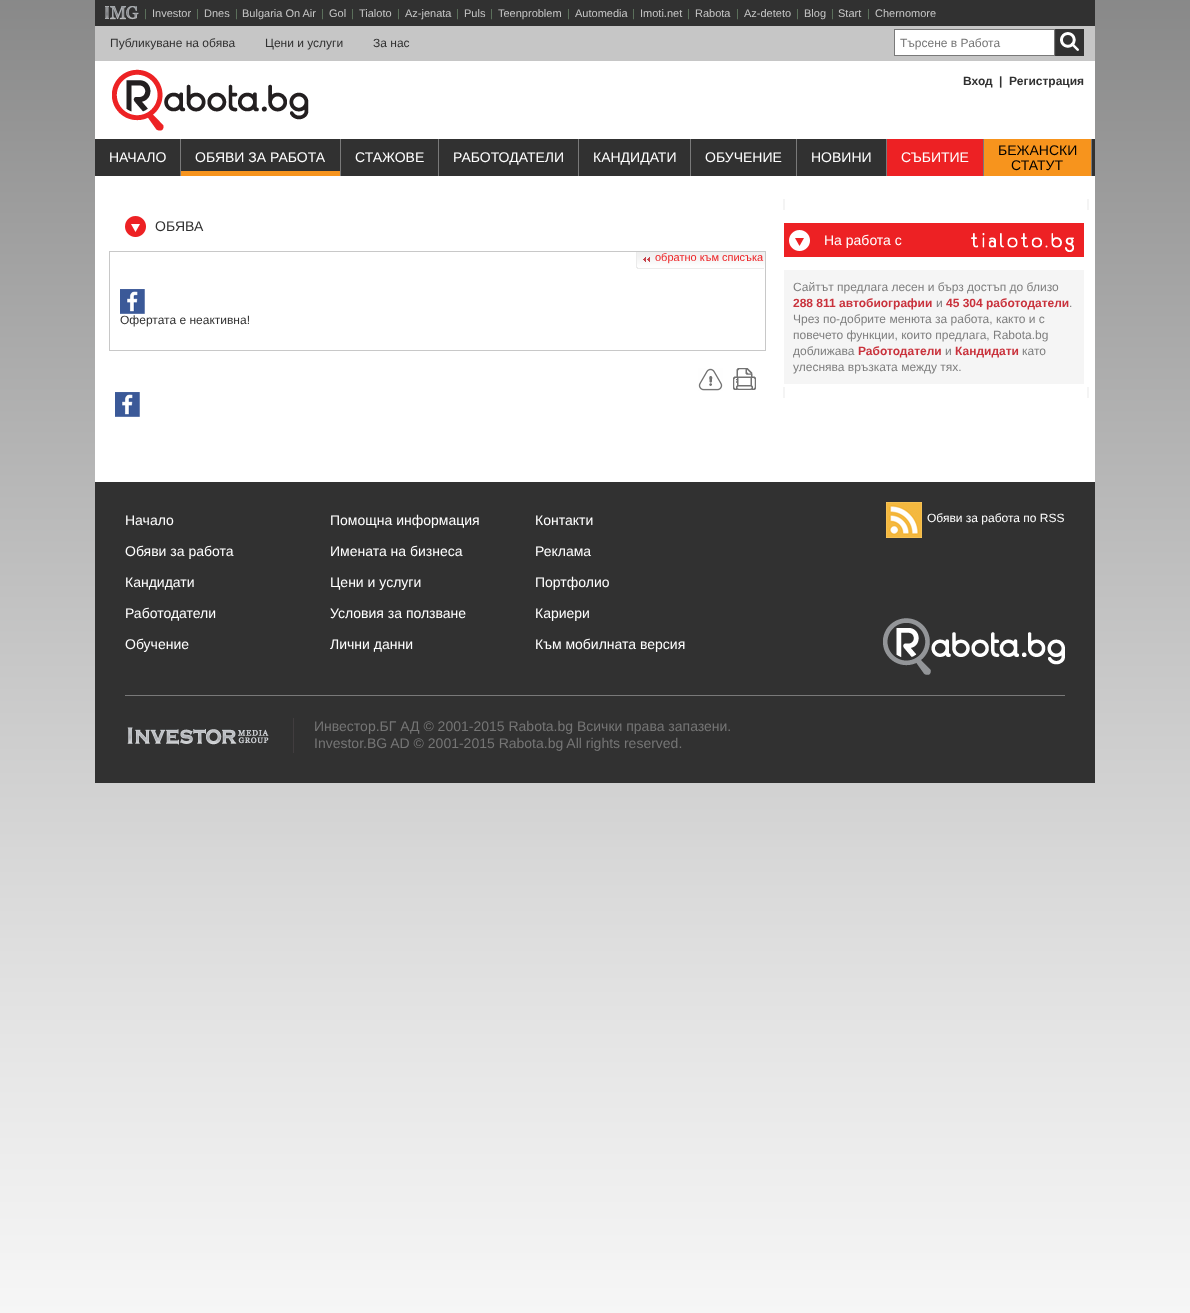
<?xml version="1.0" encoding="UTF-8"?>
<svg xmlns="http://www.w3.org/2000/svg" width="1190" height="1313">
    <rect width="100%" height="100%" fill="#FFFFFF"/>
    <image x="0" y="0" width="1190" height="1313" href="img_01.png"/>
    <rect x="95" y="0" width="1000" height="26" fill="#313131"/>
    <image x="105" y="6" width="34" height="14" href="img_02.png"/>
    <text x="144" y="17" font-family="Liberation Sans" font-size="11" fill="#627962">|</text>
    <text x="152" y="17" font-family="Liberation Sans" font-size="11" fill="#C6C6C6">Investor</text>
    <text x="196" y="17" font-family="Liberation Sans" font-size="11" fill="#627962">|</text>
    <text x="204" y="17" font-family="Liberation Sans" font-size="11" fill="#C6C6C6">Dnes</text>
    <text x="235" y="17" font-family="Liberation Sans" font-size="11" fill="#627962">|</text>
    <text x="242" y="17" font-family="Liberation Sans" font-size="11" fill="#C6C6C6">Bulgaria On Air</text>
    <text x="321" y="17" font-family="Liberation Sans" font-size="11" fill="#627962">|</text>
    <text x="329" y="17" font-family="Liberation Sans" font-size="11" fill="#C6C6C6">Gol</text>
    <text x="351" y="17" font-family="Liberation Sans" font-size="11" fill="#627962">|</text>
    <text x="359" y="17" font-family="Liberation Sans" font-size="11" fill="#C6C6C6">Tialoto</text>
    <text x="397" y="17" font-family="Liberation Sans" font-size="11" fill="#627962">|</text>
    <text x="405" y="17" font-family="Liberation Sans" font-size="11" fill="#C6C6C6">Az-jenata</text>
    <text x="456" y="17" font-family="Liberation Sans" font-size="11" fill="#627962">|</text>
    <text x="464" y="17" font-family="Liberation Sans" font-size="11" fill="#C6C6C6">Puls</text>
    <text x="490" y="17" font-family="Liberation Sans" font-size="11" fill="#627962">|</text>
    <text x="498" y="17" font-family="Liberation Sans" font-size="11" fill="#C6C6C6">Teenproblem</text>
    <text x="567" y="17" font-family="Liberation Sans" font-size="11" fill="#627962">|</text>
    <text x="575" y="17" font-family="Liberation Sans" font-size="11" fill="#C6C6C6">Automedia</text>
    <text x="632" y="17" font-family="Liberation Sans" font-size="11" fill="#627962">|</text>
    <text x="640" y="17" font-family="Liberation Sans" font-size="11" fill="#C6C6C6">Imoti.net</text>
    <text x="687" y="17" font-family="Liberation Sans" font-size="11" fill="#627962">|</text>
    <text x="695" y="17" font-family="Liberation Sans" font-size="11" fill="#C6C6C6">Rabota</text>
    <text x="736" y="17" font-family="Liberation Sans" font-size="11" fill="#627962">|</text>
    <text x="744" y="17" font-family="Liberation Sans" font-size="11" fill="#C6C6C6">Az-deteto</text>
    <text x="796" y="17" font-family="Liberation Sans" font-size="11" fill="#627962">|</text>
    <text x="804" y="17" font-family="Liberation Sans" font-size="11" fill="#C6C6C6">Blog</text>
    <text x="831" y="17" font-family="Liberation Sans" font-size="11" fill="#627962">|</text>
    <text x="838" y="17" font-family="Liberation Sans" font-size="11" fill="#C6C6C6">Start</text>
    <text x="867" y="17" font-family="Liberation Sans" font-size="11" fill="#627962">|</text>
    <text x="875" y="17" font-family="Liberation Sans" font-size="11" fill="#C6C6C6">Chernomore</text>
    <rect x="95" y="26" width="1000" height="35" fill="#C6C6C6"/>
    <text x="110" y="47" font-family="Liberation Sans" font-size="12" fill="#313131">Публикуване на обява</text>
    <text x="265" y="47" font-family="Liberation Sans" font-size="12" fill="#313131">Цени и услуги</text>
    <text x="373" y="47" font-family="Liberation Sans" font-size="12" fill="#313131">За нас</text>
    <rect x="894.5" y="29.5" width="160" height="26" fill="#FFFFFF" stroke="#797979"/>
    <text x="900" y="47" font-family="Liberation Sans" font-size="12" fill="#757575">Търсене в Работа</text>
    <image x="1055" y="29" width="29" height="27" href="img_03.png"/>
    <rect x="95" y="61" width="1000" height="421" fill="#FFFFFF"/>
    <image x="112" y="69" width="197" height="62" href="img_04.png"/>
    <text x="963" y="85" font-family="Liberation Sans" font-size="12" font-weight="700" fill="#313131">Вход</text>
    <text x="999" y="85" font-family="Liberation Sans" font-size="12" font-weight="700" fill="#313131">|</text>
    <text x="1009" y="85" font-family="Liberation Sans" font-size="12" font-weight="700" fill="#313131">Регистрация</text>
    <rect x="95" y="139" width="1000" height="37" fill="#313131"/>
    <rect x="180" y="139" width="1" height="37" fill="#797979"/>
    <text x="109" y="162" font-family="Liberation Sans" font-size="14" fill="#FFFFFF">НАЧАЛО</text>
    <rect x="340" y="139" width="1" height="37" fill="#797979"/>
    <rect x="181" y="171" width="159" height="5" fill="#F7941D"/>
    <text x="195" y="162" font-family="Liberation Sans" font-size="14" fill="#FFFFFF">ОБЯВИ ЗА РАБОТА</text>
    <rect x="438" y="139" width="1" height="37" fill="#797979"/>
    <text x="355" y="162" font-family="Liberation Sans" font-size="14" fill="#FFFFFF">СТАЖОВЕ</text>
    <rect x="578" y="139" width="1" height="37" fill="#797979"/>
    <text x="453" y="162" font-family="Liberation Sans" font-size="14" fill="#FFFFFF">РАБОТОДАТЕЛИ</text>
    <rect x="690" y="139" width="1" height="37" fill="#797979"/>
    <text x="593" y="162" font-family="Liberation Sans" font-size="14" fill="#FFFFFF">КАНДИДАТИ</text>
    <rect x="796" y="139" width="1" height="37" fill="#797979"/>
    <text x="705" y="162" font-family="Liberation Sans" font-size="14" fill="#FFFFFF">ОБУЧЕНИE</text>
    <rect x="886" y="139" width="1" height="37" fill="#797979"/>
    <text x="811" y="162" font-family="Liberation Sans" font-size="14" fill="#FFFFFF">НОВИНИ</text>
    <rect x="887" y="139" width="96" height="37" fill="#ED2124"/>
    <rect x="983" y="139" width="1" height="37" fill="#797979"/>
    <text x="901" y="162" font-family="Liberation Sans" font-size="14" fill="#FFFFFF">СЪБИТИЕ</text>
    <rect x="984" y="139" width="107" height="37" fill="#F7941D"/>
    <rect x="1091" y="139" width="1" height="37" fill="#797979"/>
    <text x="998" y="155" font-family="Liberation Sans" font-size="14" fill="#000000">БЕЖАНСКИ</text>
    <text x="1011" y="170" font-family="Liberation Sans" font-size="14" fill="#000000">СТАТУТ</text>
    <image x="125" y="216" width="21" height="21" href="img_05.png"/>
    <text x="155" y="231" font-family="Liberation Sans" font-size="14" fill="#313131">ОБЯВА</text>
    <rect x="109.5" y="251.5" width="656" height="99" fill="none" stroke="#C8C8C8"/>
    <image x="636" y="252" width="129" height="17" href="img_06.png"/>
    <text x="655" y="261" font-family="Liberation Sans" font-size="11" fill="#ED2124">обратно към списъка</text>
    <image x="120" y="289" width="25" height="25" href="img_07.png"/>
    <text x="120" y="324" font-family="Liberation Sans" font-size="12" fill="#313131">Офертата е неактивна!</text>
    <image x="698" y="368" width="25" height="23" href="img_08.png"/>
    <image x="733" y="368" width="23" height="22" href="img_09.png"/>
    <image x="115" y="392" width="25" height="25" href="img_07.png"/>
    <image x="783" y="199" width="306" height="11" href="img_10.png"/>
    <rect x="784" y="223" width="300" height="34" fill="#ED2124"/>
    <image x="789" y="230" width="21" height="21" href="img_11.png"/>
    <text x="824" y="245" font-family="Liberation Sans" font-size="14" fill="#FFFFFF">На работа с</text>
    <image x="971" y="233" width="103" height="19" href="img_12.png"/>
    <rect x="784" y="270" width="300" height="114" fill="#F5F5F5"/>
    <text x="793" y="291" font-family="Liberation Sans" font-size="12" fill="#7E7E7E">Сайтът предлага лесен и бърз достъп до близо</text>
    <text x="793" y="307" font-family="Liberation Sans" font-size="12" font-weight="700" fill="#C9323C">288 811 автобиографии</text>
    <text x="936" y="307" font-family="Liberation Sans" font-size="12" fill="#7E7E7E">и</text>
    <text x="946" y="307" font-family="Liberation Sans" font-size="12" font-weight="700" fill="#C9323C">45 304 работодатели</text>
    <text x="1069" y="307" font-family="Liberation Sans" font-size="12" fill="#7E7E7E">.</text>
    <text font-family="Liberation Sans" font-size="12" fill="#7E7E7E">
        <tspan x="793" y="323">Чрез по-добрите менюта за работа, както и с</tspan>
        <tspan x="793" y="339">повечето функции, които предлага, Rabota.bg</tspan>
        <tspan x="793" y="355">доближава</tspan>
    </text>
    <text x="858" y="355" font-family="Liberation Sans" font-size="12" font-weight="700" fill="#C9323C">Работодатели</text>
    <text x="945" y="355" font-family="Liberation Sans" font-size="12" fill="#7E7E7E">и</text>
    <text x="955" y="355" font-family="Liberation Sans" font-size="12" font-weight="700" fill="#C9323C">Кандидати</text>
    <text x="1022" y="355" font-family="Liberation Sans" font-size="12" fill="#7E7E7E">като</text>
    <text x="793" y="371" font-family="Liberation Sans" font-size="12" fill="#7E7E7E">улеснява връзката между тях.</text>
    <image x="783" y="387" width="306" height="11" href="img_10.png"/>
    <rect x="95" y="482" width="1000" height="301" fill="#313131"/>
    <text x="125" y="525" font-family="Liberation Sans" font-size="14" fill="#FFFFFF">Начало</text>
    <text x="125" y="556" font-family="Liberation Sans" font-size="14" fill="#FFFFFF">Обяви за работа</text>
    <text x="125" y="587" font-family="Liberation Sans" font-size="14" fill="#FFFFFF">Кандидати</text>
    <text x="125" y="618" font-family="Liberation Sans" font-size="14" fill="#FFFFFF">Работодатели</text>
    <text x="125" y="649" font-family="Liberation Sans" font-size="14" fill="#FFFFFF">Обучение</text>
    <text x="330" y="525" font-family="Liberation Sans" font-size="14" fill="#FFFFFF">Помощна информация</text>
    <text x="330" y="556" font-family="Liberation Sans" font-size="14" fill="#FFFFFF">Имената на бизнеса</text>
    <text x="330" y="587" font-family="Liberation Sans" font-size="14" fill="#FFFFFF">Цени и услуги</text>
    <text x="330" y="618" font-family="Liberation Sans" font-size="14" fill="#FFFFFF">Условия за ползване</text>
    <text x="330" y="649" font-family="Liberation Sans" font-size="14" fill="#FFFFFF">Лични данни</text>
    <text x="535" y="525" font-family="Liberation Sans" font-size="14" fill="#FFFFFF">Контакти</text>
    <text x="535" y="556" font-family="Liberation Sans" font-size="14" fill="#FFFFFF">Реклама</text>
    <text x="535" y="587" font-family="Liberation Sans" font-size="14" fill="#FFFFFF">Портфолио</text>
    <text x="535" y="618" font-family="Liberation Sans" font-size="14" fill="#FFFFFF">Кариери</text>
    <text x="535" y="649" font-family="Liberation Sans" font-size="14" fill="#FFFFFF">Към мобилната версия</text>
    <image x="886" y="502" width="36" height="36" href="img_13.png"/>
    <text x="927" y="522" font-family="Liberation Sans" font-size="12" fill="#FFFFFF">Обяви за работа по RSS</text>
    <image x="883" y="618" width="182" height="57" href="img_14.png"/>
    <rect x="125" y="695" width="940" height="1" fill="#797979"/>
    <image x="127" y="718" width="167" height="35" href="img_15.png"/>
    <text font-family="Liberation Sans" font-size="14" fill="#757575">
        <tspan x="314" y="731">Инвестор.БГ АД © 2001-2015 Rabota.bg Всички права запазени.</tspan>
        <tspan x="314" y="748">Investor.BG AD © 2001-2015 Rabota.bg All rights reserved.</tspan>
    </text>
</svg>
